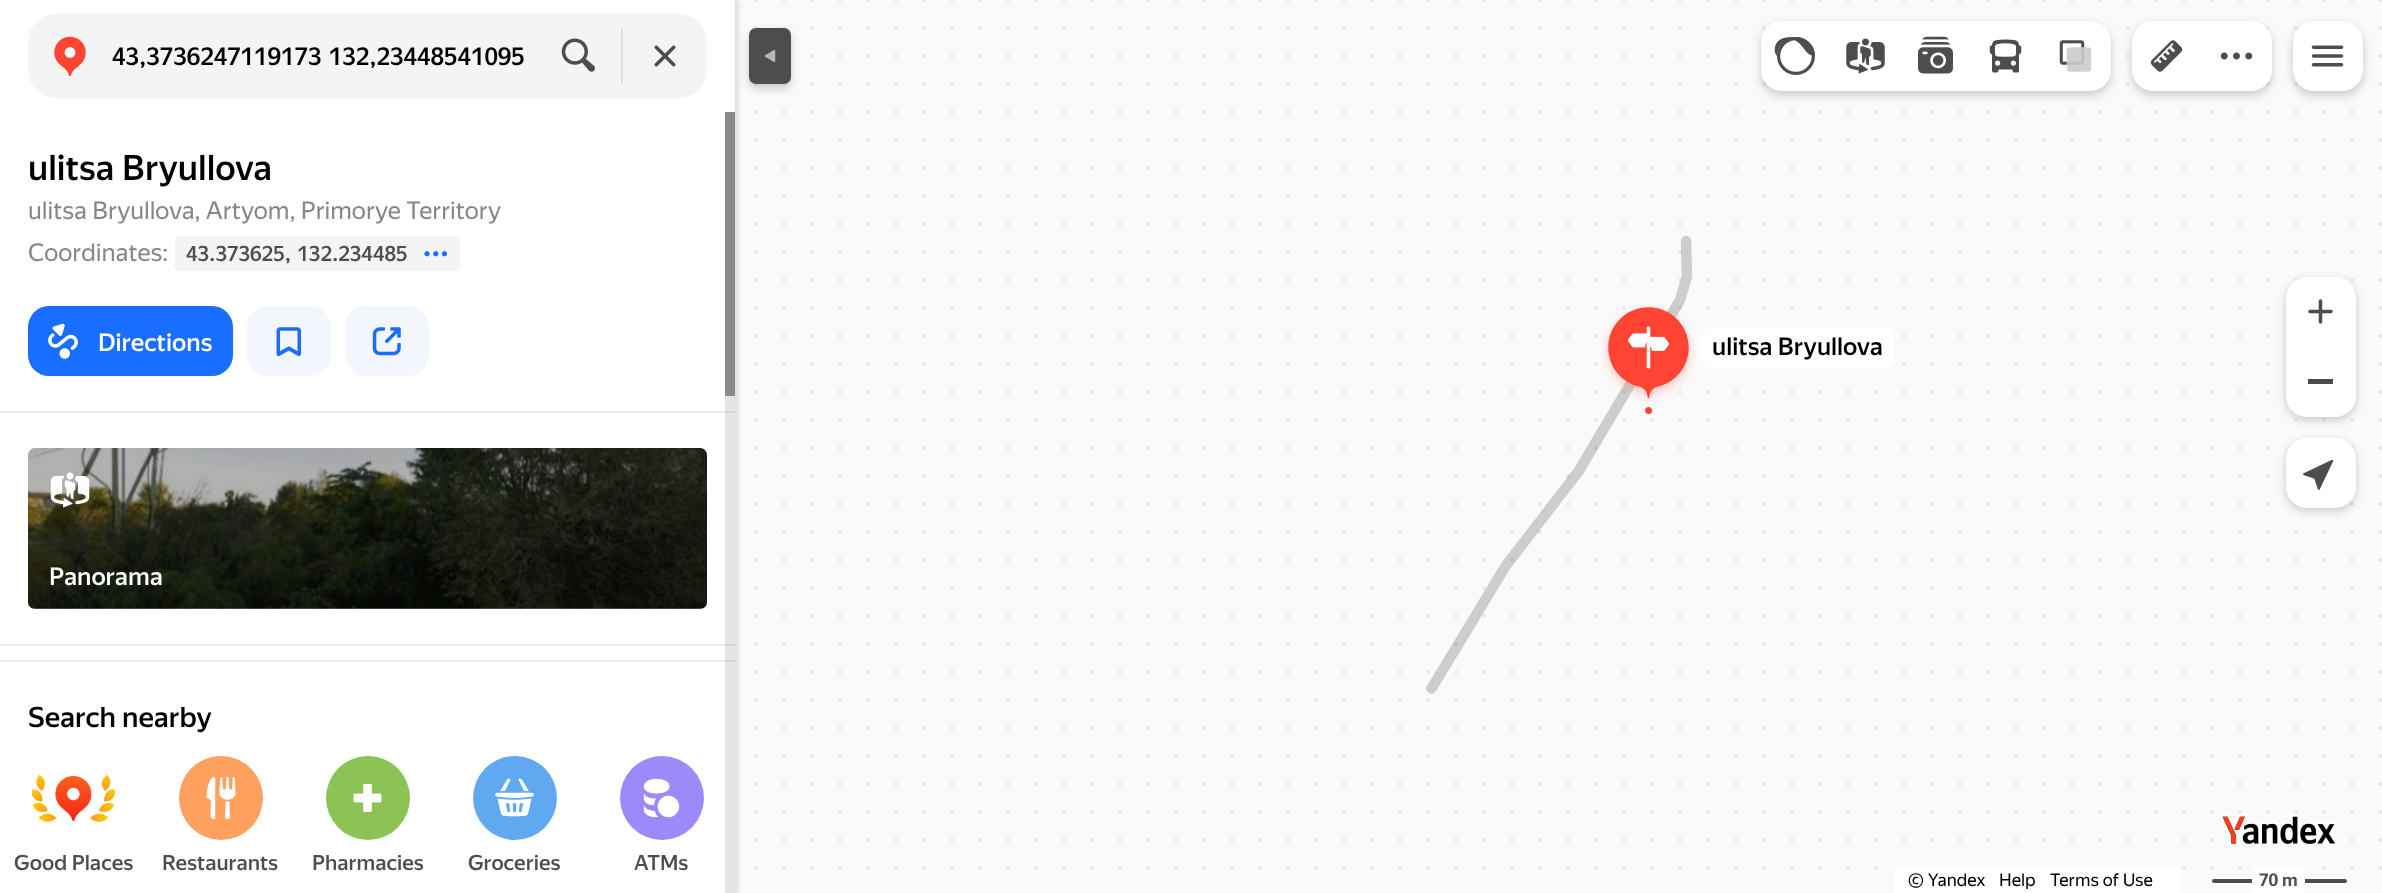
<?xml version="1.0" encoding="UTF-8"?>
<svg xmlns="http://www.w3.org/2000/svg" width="2382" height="893">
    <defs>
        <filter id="blur1" x="-50%" y="-200%" width="200%" height="500%"><feGaussianBlur stdDeviation="2"/></filter>
        <filter id="blur2" x="-50%" y="-200%" width="200%" height="500%"><feGaussianBlur stdDeviation="5"/></filter>
    </defs>
    <rect width="100%" height="100%" fill="#FFFFFF"/>
    <image x="735" y="0" width="1647" height="893" href="img_01.png"/>
    <rect x="4" y="0" width="735" height="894" fill="#000000" fill-opacity="0.1" filter="url(#blur1)"/>
    <rect x="749" y="32" width="42" height="56" rx="7" fill="#000000" fill-opacity="0.2" filter="url(#blur2)"/>
    <rect x="1" y="0" width="734" height="893" fill="#FFFFFF"/>
    <rect x="28" y="14" width="679" height="84" rx="28" fill="#F4F4F4"/>
    <image x="54" y="36" width="32" height="41" href="img_02.png"/>
    <text x="112" y="65" font-family="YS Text" font-size="24.5" font-weight="500" fill="#000000">43,3736247119173 132,23448541095</text>
    <image x="561" y="38" width="34" height="34" href="img_03.png"/>
    <rect x="621" y="28" width="2" height="56" fill="#E0E0E0"/>
    <image x="654" y="45" width="22" height="22" href="img_04.png"/>
    <rect x="1761" y="25" width="350" height="70" rx="21" fill="#000000" fill-opacity="0.2" filter="url(#blur2)"/>
    <path d="M 1782 21 H 1831 V 91 H 1782 C 1770.5 91 1761 81.5 1761 70 V 42 C 1761 30.5 1770.5 21 1782 21 Z" fill="#FFFFFF"/>
    <image x="1774" y="37" width="41" height="38" href="img_05.png"/>
    <rect x="1831" y="21" width="210" height="70" fill="#FFFFFF"/>
    <image x="1846" y="38" width="39" height="36" href="img_06.png"/>
    <path d="M 2041 21 H 2090 C 2101.5 21 2111 30.5 2111 42 V 70 C 2111 81.5 2101.5 91 2090 91 H 2041 Z" fill="#FFFFFF"/>
    <image x="2059" y="40" width="33" height="32" href="img_07.png"/>
    <image x="1918" y="36" width="35" height="38" href="img_08.png"/>
    <image x="1989" y="39" width="33" height="34" href="img_09.png"/>
    <rect x="2132" y="25" width="140" height="70" rx="21" fill="#000000" fill-opacity="0.2" filter="url(#blur2)"/>
    <path d="M 2153 21 H 2202 V 91 H 2153 C 2141.5 91 2132 81.5 2132 70 V 42 C 2132 30.5 2141.5 21 2153 21 Z" fill="#FFFFFF"/>
    <image x="2150" y="40" width="33" height="32" href="img_10.png"/>
    <path d="M 2202 21 H 2251 C 2262.5 21 2272 30.5 2272 42 V 70 C 2272 81.5 2262.5 91 2251 91 H 2202 Z" fill="#FFFFFF"/>
    <image x="2220" y="52" width="33" height="8" href="img_11.png"/>
    <rect x="2293" y="25" width="70" height="70" rx="21" fill="#000000" fill-opacity="0.2" filter="url(#blur2)"/>
    <rect x="2293" y="21" width="70" height="70" rx="21" fill="#FFFFFF"/>
    <image x="2311" y="45" width="33" height="22" href="img_12.png"/>
    <rect x="2286" y="280" width="70" height="140" rx="21" fill="#000000" fill-opacity="0.2" filter="url(#blur2)"/>
    <path d="M 2307 277 H 2335 C 2346.5 277 2356 286.5 2356 298 V 347 H 2286 V 298 C 2286 286.5 2295.5 277 2307 277 Z" fill="#FFFFFF"/>
    <image x="2308" y="299" width="25" height="25" href="img_13.png"/>
    <path d="M 2286 347 H 2356 V 396 C 2356 407.5 2346.5 417 2335 417 H 2307 C 2295.5 417 2286 407.5 2286 396 Z" fill="#FFFFFF"/>
    <rect x="2308" y="379" width="25" height="5" fill="#4D4D4D"/>
    <rect x="2286" y="441" width="70" height="70" rx="21" fill="#000000" fill-opacity="0.2" filter="url(#blur2)"/>
    <rect x="2286" y="438" width="70" height="70" rx="21" fill="#FFFFFF"/>
    <image x="2303" y="459" width="31" height="31" href="img_14.png"/>
    <rect x="749" y="28" width="42" height="56" rx="7" fill="#4D4D4D"/>
    <image x="764" y="49" width="12" height="14" href="img_15.png"/>
    <text x="28" y="180" font-family="YS Text" font-size="35" font-weight="500" fill="#000000">ulitsa Bryullova</text>
    <text font-family="YS Text" font-size="24.5" fill="#878787">
        <tspan x="28" y="219">ulitsa Bryullova, Artyom, Primorye Territory</tspan>
        <tspan x="28" y="261">Coordinates:</tspan>
    </text>
    <rect x="175" y="236" width="285" height="35" rx="4" fill="#F4F4F4"/>
    <text x="186" y="261" font-family="YS Text" font-size="21" font-weight="500" fill="#4D4D4D">43.373625, 132.234485</text>
    <image x="424" y="251" width="24" height="6" href="img_16.png"/>
    <rect x="28" y="306" width="205" height="70" rx="21" fill="#196DFF"/>
    <image x="48" y="323" width="30" height="36" href="img_17.png"/>
    <text x="98" y="351" font-family="YS Text" font-size="24.5" font-weight="500" fill="#FFFFFF">Directions</text>
    <rect x="247" y="306" width="84" height="70" rx="21" fill="#F3F6FC"/>
    <image x="276" y="327" width="25" height="30" href="img_18.png"/>
    <rect x="345" y="306" width="84" height="70" rx="21" fill="#F3F6FC"/>
    <image x="372" y="327" width="29" height="29" href="img_19.png"/>
    <rect x="0" y="411" width="735" height="2" fill="#EBEBEB"/>
    <rect x="0" y="644" width="735" height="2" fill="#EBEBEB"/>
    <image x="28" y="448" width="679" height="161" href="img_20.png"/>
    <rect x="28" y="448" width="679" height="161" rx="7" fill="#000000" fill-opacity="0.3"/>
    <image x="50" y="472" width="40" height="36" href="img_21.png"/>
    <text x="49" y="585" font-family="YS Text" font-size="24.5" font-weight="500" fill="#FFFFFF">Panorama</text>
    <rect x="0" y="660" width="735" height="2" fill="#EBEBEB"/>
    <text x="28" y="727" font-family="YS Text" font-size="28" font-weight="500" fill="#000000">Search nearby</text>
    <image x="32" y="774" width="83" height="48" href="img_22.png"/>
    <text x="14" y="870" font-family="YS Text" font-size="21" font-weight="500" fill="#4D4D4D">Good Places</text>
    <circle cx="221" cy="798" r="42" fill="#FFA15E"/>
    <image x="206" y="777" width="30" height="42" href="img_23.png"/>
    <text x="162" y="870" font-family="YS Text" font-size="21" font-weight="500" fill="#4D4D4D">Restaurants</text>
    <circle cx="368" cy="798" r="42" fill="#8DC257"/>
    <image x="353" y="784" width="29" height="28" href="img_24.png"/>
    <text x="312" y="870" font-family="YS Text" font-size="21" font-weight="500" fill="#4D4D4D">Pharmacies</text>
    <circle cx="515" cy="798" r="42" fill="#60A8F0"/>
    <image x="495" y="778" width="39" height="39" href="img_25.png"/>
    <text x="468" y="870" font-family="YS Text" font-size="21" font-weight="500" fill="#4D4D4D">Groceries</text>
    <circle cx="662" cy="798" r="42" fill="#9C89FA"/>
    <image x="643" y="778" width="37" height="40" href="img_26.png"/>
    <text x="634" y="870" font-family="YS Text" font-size="21" font-weight="500" fill="#4D4D4D">ATMs</text>
    <rect x="725" y="112" width="10" height="284" fill="#8A8A8A"/>
    <rect x="725" y="396" width="10" height="497" fill="#000000" fill-opacity="0.1"/>
    <image x="2222" y="813" width="113" height="31" href="img_27.png"/>
    <path d="M 1901 866 H 2174 C 2178 866 2181 869 2181 873 V 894 H 1894 V 873 C 1894 869 1897 866 1901 866 Z" fill="#FFFFFF"/>
    <text x="1908" y="886" font-family="YS Text" font-size="17.5" fill="#000000">© Yandex</text>
    <text x="1999" y="886" font-family="YS Text" font-size="17.5" fill="#000000">Help</text>
    <text x="2050" y="886" font-family="YS Text" font-size="17.5" fill="#000000">Terms of Use</text>
    <rect x="2209" y="875" width="141" height="11" rx="5.5" fill="#FDFDFD"/>
    <rect x="2212" y="879" width="135" height="4" rx="2" fill="#4D4D4D"/>
    <path d="M 2259 866 H 2298 C 2302 866 2305 869 2305 873 V 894 H 2252 V 873 C 2252 869 2255 866 2259 866 Z" fill="#FFFFFF"/>
    <text x="2259" y="886" font-family="YS Text" font-size="17.5" font-weight="700" fill="#4D4D4D">70 m</text>
    <path d="M 1686 241 L 1687 276.5 L 1680 300 L 1578.5 471.5 L 1506 565.5 L 1431.5 688.5" fill="none" stroke="#000000" stroke-opacity="0.18" stroke-width="10.5" stroke-linecap="round" stroke-linejoin="round"/>
    <image x="1601" y="304" width="95" height="113" href="img_28.png"/>
    <image x="1627" y="326" width="42" height="43" href="img_29.png"/>
    <rect x="1701" y="327" width="193" height="41" rx="11" fill="#FFFFFF" fill-opacity="0.9"/>
    <text x="1712" y="355" font-family="YS Text" font-size="24.5" font-weight="500" fill="#000000">ulitsa Bryullova</text>
</svg>
